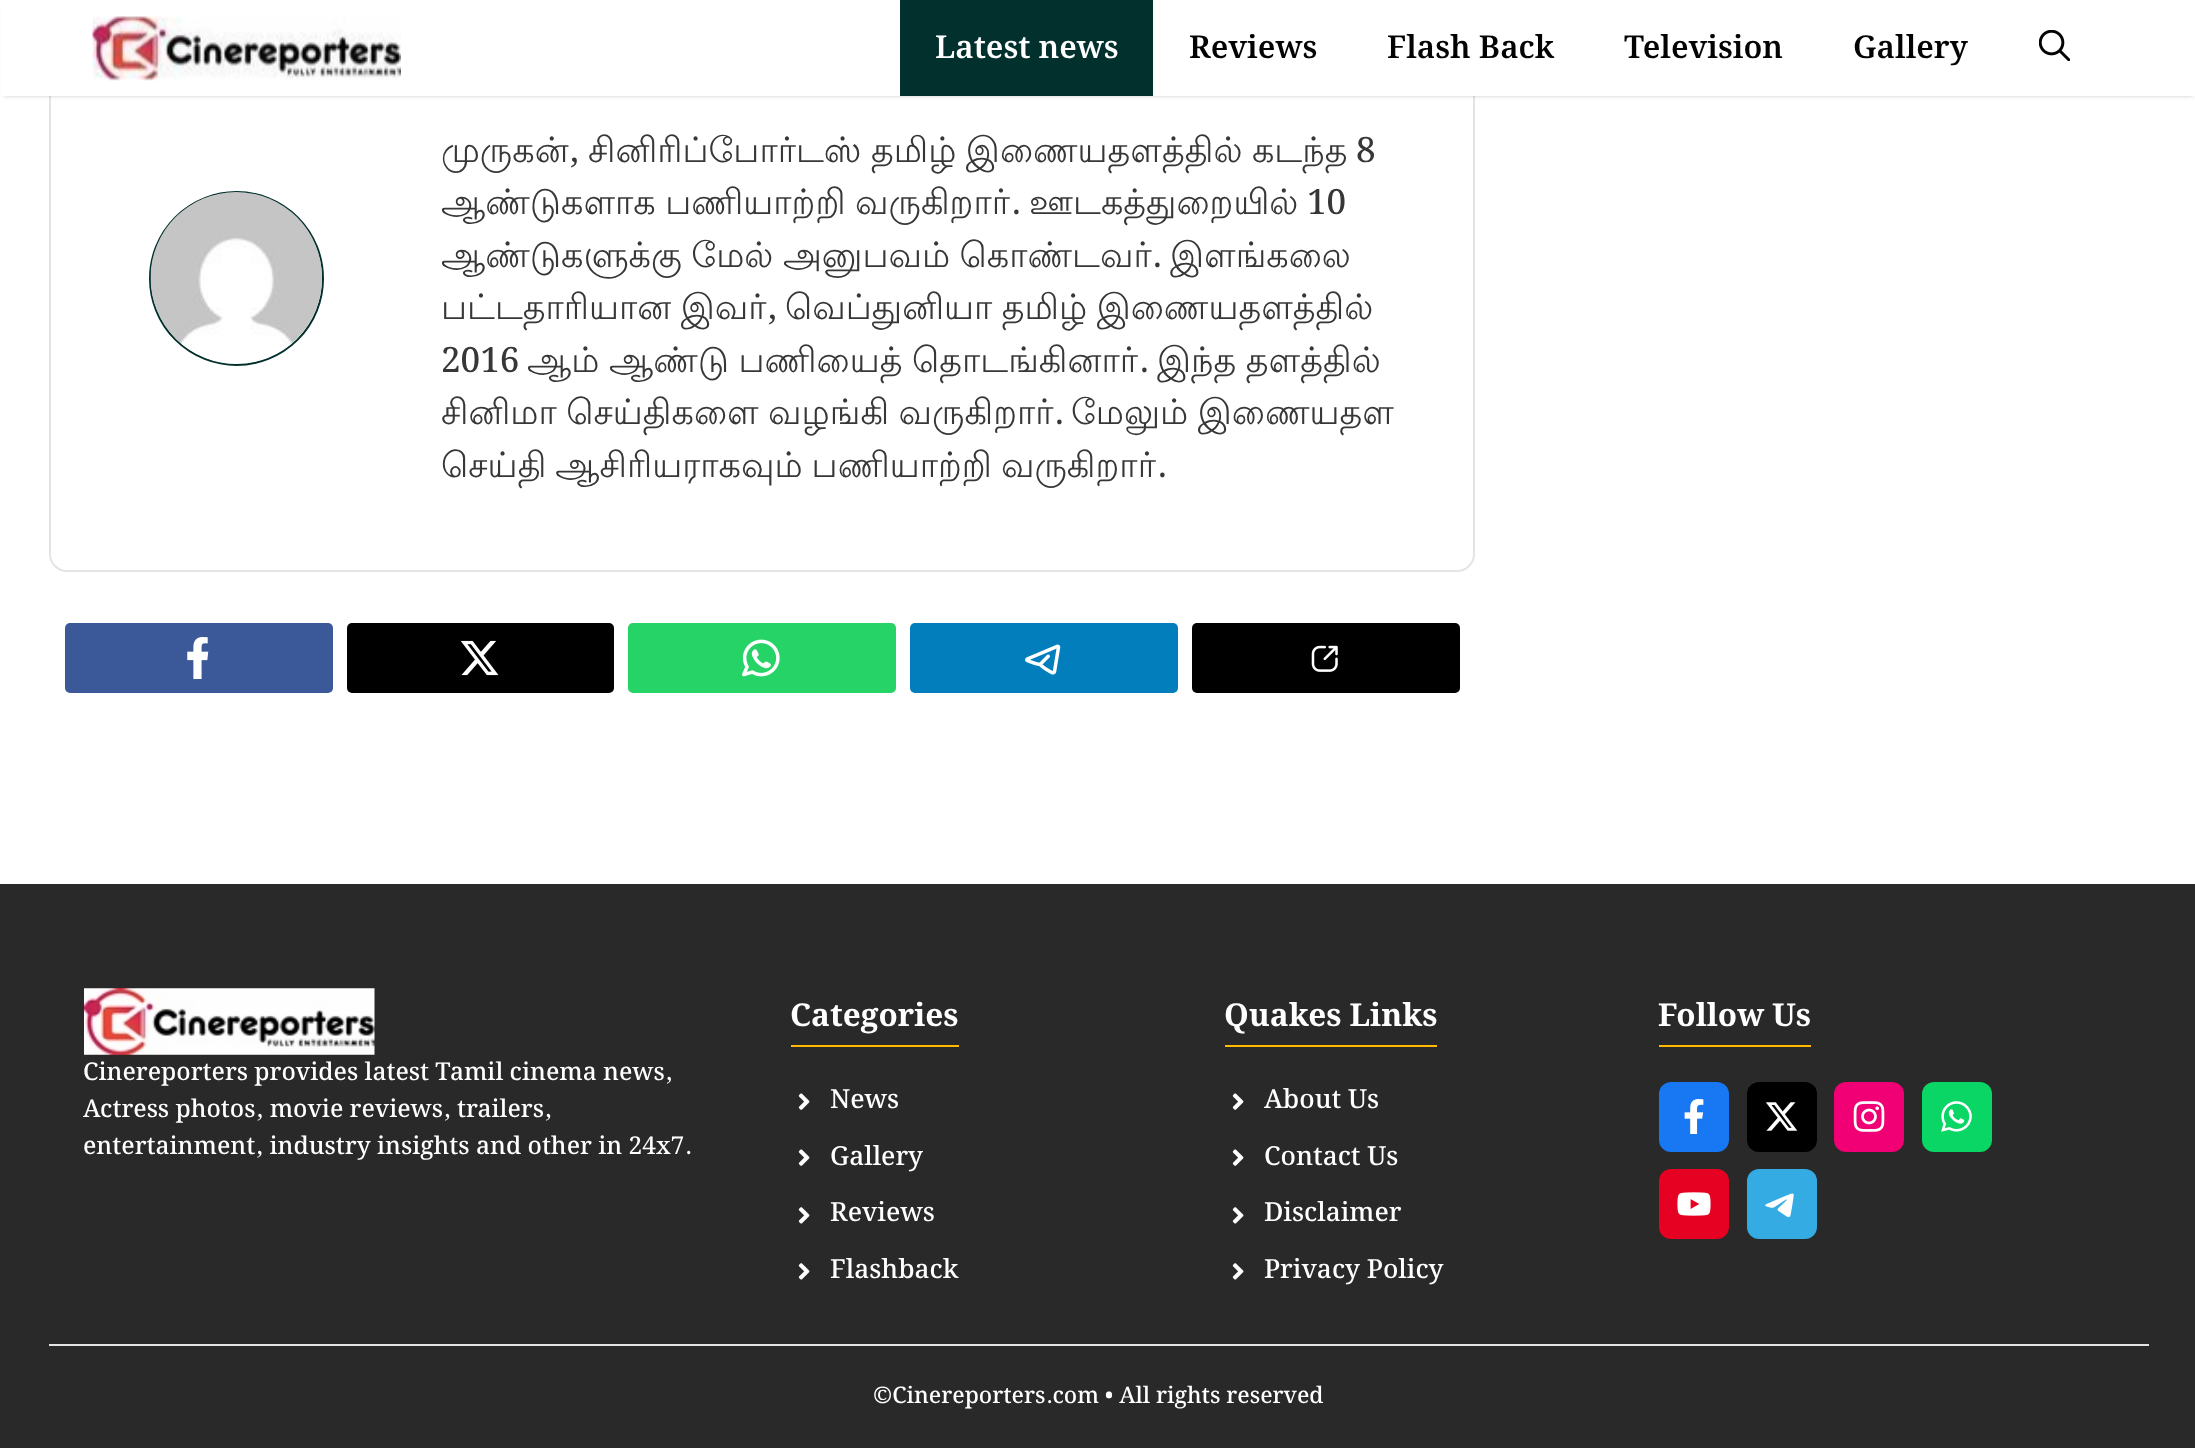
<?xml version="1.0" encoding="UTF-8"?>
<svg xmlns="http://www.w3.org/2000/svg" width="2195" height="1448">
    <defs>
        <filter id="blur1" x="-50%" y="-200%" width="200%" height="500%"><feGaussianBlur stdDeviation="2"/></filter>
    </defs>
    <rect width="100%" height="100%" fill="#FFFFFF"/>
    <rect x="50" y="-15" width="1424" height="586" rx="17" fill="none" stroke="#E4E4E4" stroke-width="2"/>
    <rect x="4" y="7" width="2189" height="89" fill="#000000" fill-opacity="0.2" filter="url(#blur1)"/>
    <rect x="1" y="0" width="2194" height="96" fill="#FFFFFF"/>
    <image x="91" y="16" width="310" height="65" href="img_01.png"/>
    <rect x="900" y="0" width="253" height="96" fill="#02312D"/>
    <text x="935" y="58" font-family="Noto Serif Bengali" font-size="31.5" font-weight="600" fill="#FFFFFF">Latest news</text>
    <text x="1189" y="58" font-family="Noto Serif Bengali" font-size="31.5" font-weight="600" fill="#040303">Reviews</text>
    <text x="1387" y="58" font-family="Noto Serif Bengali" font-size="31.5" font-weight="600" fill="#040303">Flash Back</text>
    <text x="1624" y="58" font-family="Noto Serif Bengali" font-size="31.5" font-weight="600" fill="#040303">Television</text>
    <text x="1853" y="58" font-family="Noto Serif Bengali" font-size="31.5" font-weight="600" fill="#040303">Gallery</text>
    <image x="2039" y="30" width="31" height="31" href="img_02.png"/>
    <circle cx="236.5" cy="278.5" r="86.5" fill="none" stroke="#02312D" stroke-width="2"/>
    <image x="150" y="192" width="172" height="172" href="img_03.png"/>
    <text x="441" y="162" font-family="Lohit Tamil" font-size="35" fill="#373737">முருகன்</text>
    <text x="568" y="162" font-family="Noto Serif Bengali" font-size="35" font-weight="500" fill="#373737">,</text>
    <text x="588" y="162" word-spacing="-1" font-family="Lohit Tamil" font-size="35" fill="#373737">சினிரிப்போர்டஸ் தமிழ் இணையதளத்தில் கடந்த</text>
    <text x="1356" y="162" font-family="Noto Serif Bengali" font-size="35" font-weight="500" fill="#373737">8</text>
    <text x="441" y="214" word-spacing="-1" font-family="Lohit Tamil" font-size="35" fill="#373737">ஆண்டுகளாக பணியாற்றி வருகிறார்</text>
    <text x="1010" y="214" font-family="Noto Serif Bengali" font-size="35" font-weight="500" fill="#373737">.</text>
    <text x="1029" y="214" font-family="Lohit Tamil" font-size="35" fill="#373737">ஊடகத்துறையில்</text>
    <text x="1307" y="214" font-family="Noto Serif Bengali" font-size="35" font-weight="500" fill="#373737">10</text>
    <text x="441" y="267" word-spacing="-1" font-family="Lohit Tamil" font-size="35" fill="#373737">ஆண்டுகளுக்கு மேல் அனுபவம் கொண்டவர்</text>
    <text x="1151" y="267" font-family="Noto Serif Bengali" font-size="35" font-weight="500" fill="#373737">.</text>
    <text x="1170" y="267" font-family="Lohit Tamil" font-size="35" fill="#373737">இளங்கலை</text>
    <text x="441" y="319" word-spacing="-1" font-family="Lohit Tamil" font-size="35" fill="#373737">பட்டதாரியான இவர்</text>
    <text x="766" y="319" font-family="Noto Serif Bengali" font-size="35" font-weight="500" fill="#373737">,</text>
    <text x="785" y="319" word-spacing="-1" font-family="Lohit Tamil" font-size="35" fill="#373737">வெப்துனியா தமிழ் இணையதளத்தில்</text>
    <text x="441" y="372" font-family="Noto Serif Bengali" font-size="35" font-weight="500" fill="#373737">2016</text>
    <text x="527" y="372" word-spacing="-1" font-family="Lohit Tamil" font-size="35" fill="#373737">ஆம் ஆண்டு பணியைத் தொடங்கினார்</text>
    <text x="1138" y="372" font-family="Noto Serif Bengali" font-size="35" font-weight="500" fill="#373737">.</text>
    <text x="1157" y="372" word-spacing="-1" font-family="Lohit Tamil" font-size="35" fill="#373737">இந்த தளத்தில்</text>
    <text x="441" y="424" word-spacing="-1" font-family="Lohit Tamil" font-size="35" fill="#373737">சினிமா செய்திகளை வழங்கி வருகிறார்</text>
    <text x="1053" y="424" font-family="Noto Serif Bengali" font-size="35" font-weight="500" fill="#373737">.</text>
    <text x="1071" y="424" word-spacing="-1" font-family="Lohit Tamil" font-size="35" fill="#373737">மேலும் இணையதள</text>
    <text x="441" y="477" word-spacing="-1.5" font-family="Lohit Tamil" font-size="35" fill="#373737">செய்தி ஆசிரியராகவும் பணியாற்றி வருகிறார்</text>
    <text x="1156" y="477" font-family="Noto Serif Bengali" font-size="35" font-weight="500" fill="#373737">.</text>
    <rect x="65" y="623" width="268" height="70" rx="5" fill="#3B5998"/>
    <image x="187" y="637" width="22" height="42" href="img_04.png"/>
    <rect x="347" y="623" width="267" height="70" rx="5" fill="#000000"/>
    <image x="460" y="640" width="39" height="36" href="img_05.png"/>
    <rect x="628" y="623" width="268" height="70" rx="5" fill="#25D366"/>
    <image x="742" y="639" width="38" height="38" href="img_06.png"/>
    <rect x="910" y="623" width="268" height="70" rx="5" fill="#027EBD"/>
    <image x="1025" y="644" width="36" height="31" href="img_07.png"/>
    <rect x="1192" y="623" width="268" height="70" rx="5" fill="#000000"/>
    <image x="1311" y="645" width="27" height="27" href="img_08.png"/>
    <rect x="0" y="884" width="2195" height="564" fill="#292929"/>
    <rect x="49" y="1344" width="2100" height="2" fill="#E4E4E4"/>
    <rect x="791" y="1045" width="168" height="2" fill="#FFB700"/>
    <text x="790" y="1026" font-family="Noto Serif Bengali" font-size="31.5" font-weight="700" fill="#FFFFFF">Categories</text>
    <image x="798" y="1093" width="12" height="17" href="img_09.png"/>
    <text x="830" y="1108" font-family="Noto Serif Bengali" font-size="26.25" font-weight="500" fill="#FFFFFF">News</text>
    <image x="798" y="1149" width="12" height="17" href="img_09.png"/>
    <text x="830" y="1165" font-family="Noto Serif Bengali" font-size="26.25" font-weight="500" fill="#FFFFFF">Gallery</text>
    <image x="798" y="1207" width="12" height="17" href="img_10.png"/>
    <text x="830" y="1221" font-family="Noto Serif Bengali" font-size="26.25" font-weight="500" fill="#FFFFFF">Reviews</text>
    <image x="798" y="1263" width="12" height="17" href="img_10.png"/>
    <text x="830" y="1278" font-family="Noto Serif Bengali" font-size="26.25" font-weight="500" fill="#FFFFFF">Flashback</text>
    <rect x="1225" y="1045" width="212" height="2" fill="#FFB700"/>
    <text x="1224" y="1026" font-family="Noto Serif Bengali" font-size="31.5" font-weight="700" fill="#FFFFFF">Quakes Links</text>
    <image x="1232" y="1093" width="12" height="17" href="img_09.png"/>
    <text x="1264" y="1108" font-family="Noto Serif Bengali" font-size="26.25" font-weight="500" fill="#FFFFFF">About Us</text>
    <image x="1232" y="1149" width="12" height="17" href="img_09.png"/>
    <text x="1264" y="1165" font-family="Noto Serif Bengali" font-size="26.25" font-weight="500" fill="#FFFFFF">Contact Us</text>
    <image x="1232" y="1207" width="12" height="17" href="img_10.png"/>
    <text x="1264" y="1221" font-family="Noto Serif Bengali" font-size="26.25" font-weight="500" fill="#FFFFFF">Disclaimer</text>
    <image x="1232" y="1263" width="12" height="17" href="img_10.png"/>
    <text x="1264" y="1278" font-family="Noto Serif Bengali" font-size="26.25" font-weight="500" fill="#FFFFFF">Privacy Policy</text>
    <rect x="1659" y="1045" width="152" height="2" fill="#FFB700"/>
    <text x="1658" y="1026" font-family="Noto Serif Bengali" font-size="31.5" font-weight="700" fill="#FFFFFF">Follow Us</text>
    <rect x="1659" y="1082" width="70" height="70" rx="12" fill="#1877F2"/>
    <image x="1684" y="1099" width="20" height="35" href="img_11.png"/>
    <rect x="1747" y="1082" width="70" height="70" rx="12" fill="#000000"/>
    <image x="1766" y="1102" width="32" height="29" href="img_12.png"/>
    <rect x="1834" y="1082" width="70" height="70" rx="12" fill="#F00074"/>
    <image x="1853" y="1101" width="32" height="31" href="img_13.png"/>
    <rect x="1922" y="1082" width="70" height="70" rx="12" fill="#09D665"/>
    <image x="1941" y="1101" width="31" height="31" href="img_14.png"/>
    <rect x="1659" y="1169" width="70" height="70" rx="12" fill="#E60022"/>
    <image x="1677" y="1192" width="34" height="24" href="img_15.png"/>
    <rect x="1747" y="1169" width="70" height="70" rx="12" fill="#34ACE3"/>
    <image x="1765" y="1193" width="29" height="25" href="img_16.png"/>
    <image x="84" y="988" width="291" height="67" href="img_17.png"/>
    <text font-family="Noto Serif Bengali" font-size="24.5" font-weight="500" fill="#FFFFFF">
        <tspan x="83" y="1080">Cinereporters provides latest Tamil cinema news,</tspan>
        <tspan x="83" y="1117">Actress photos, movie reviews, trailers,</tspan>
        <tspan x="83" y="1154">entertainment, industry insights and other in 24x7.</tspan>
    </text>
    <text x="873" y="1403" font-family="Noto Serif Bengali" font-size="22.75" font-weight="500" fill="#FFFFFF">©Cinereporters.com • All rights reserved</text>
</svg>
